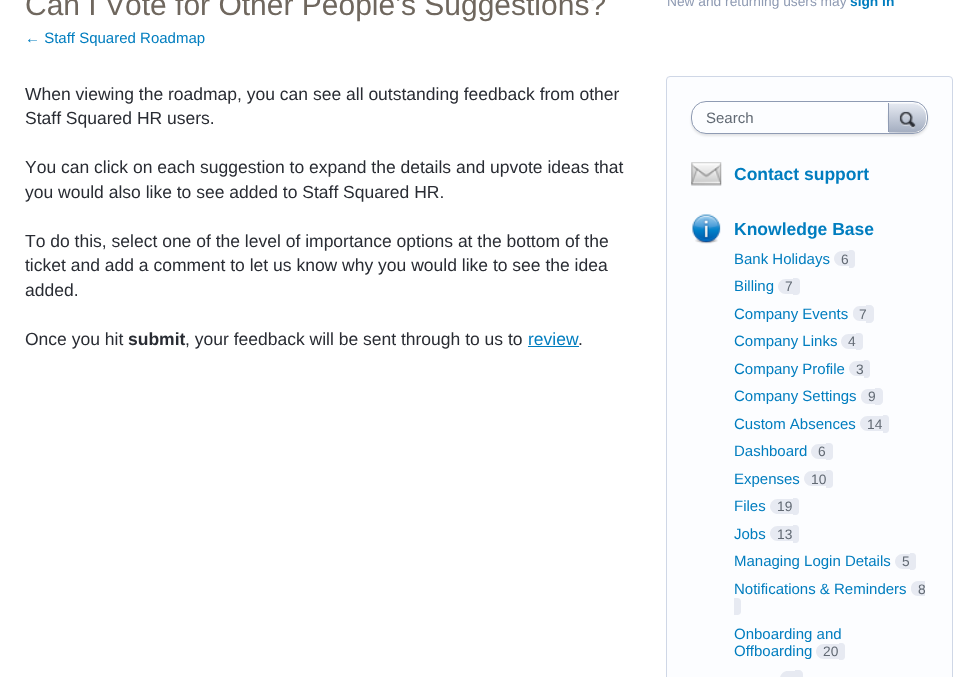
<?xml version="1.0" encoding="UTF-8"?>
<svg xmlns="http://www.w3.org/2000/svg" width="977" height="677">
    <style>*{font-kerning:none!important;font-variant-ligatures:none!important}</style>
    <defs>
        <filter id="blur1" x="-50%" y="-200%" width="200%" height="500%"><feGaussianBlur stdDeviation="1"/></filter>
        <clipPath id="clip1"><rect x="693" y="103" width="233" height="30" rx="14"/></clipPath>
        <linearGradient id="g1" gradientUnits="userSpaceOnUse" x1="889" y1="103" x2="889" y2="133"><stop offset="0" stop-color="#E6EAF2"/><stop offset="1" stop-color="#A2ACBF"/></linearGradient>
    </defs>
    <rect width="100%" height="100%" fill="#FFFFFF"/>
    <text x="25" y="15" font-family="Liberation Sans" font-size="30" fill="#6F675E">Can I Vote for Other People's Suggestions?</text>
    <text x="25" y="43" font-family="Liberation Sans" font-size="15" fill="#007DBF">← Staff Squared Roadmap</text>
    <text font-family="Liberation Sans" font-size="17.5" fill="#292C33">
        <tspan x="25" y="100">When viewing the roadmap, you can see all outstanding feedback from other</tspan>
        <tspan x="25" y="124">Staff Squared HR users.</tspan>
    </text>
    <text font-family="Liberation Sans" font-size="17.5" fill="#292C33">
        <tspan x="25" y="173">You can click on each suggestion to expand the details and upvote ideas that</tspan>
        <tspan x="25" y="198">you would also like to see added to Staff Squared HR.</tspan>
    </text>
    <text font-family="Liberation Sans" font-size="17.5" fill="#292C33">
        <tspan x="25" y="247">To do this, select one of the level of importance options at the bottom of the</tspan>
        <tspan x="25" y="271">ticket and add a comment to let us know why you would like to see the idea</tspan>
        <tspan x="25" y="296">added.</tspan>
    </text>
    <text x="25" y="345" font-family="Liberation Sans" font-size="17.5" fill="#292C33">Once you hit</text>
    <text x="128" y="345" font-family="Liberation Sans" font-size="17.5" font-weight="700" fill="#292C33">submit</text>
    <text x="185" y="345" font-family="Liberation Sans" font-size="17.5" fill="#292C33">, your feedback will be sent through to us to</text>
    <text x="528" y="345" font-family="Liberation Sans" font-size="17.5" fill="#007DBF">review</text>
    <rect x="528" y="346" width="51" height="1" fill="#007DBF"/>
    <text x="578" y="345" font-family="Liberation Sans" font-size="17.5" fill="#292C33">.</text>
    <text x="667" y="6" font-family="Liberation Sans" font-size="13.75" fill="#8F9BB3">New and returning users may</text>
    <text x="850" y="6" font-family="Liberation Sans" font-size="13.75" font-weight="700" fill="#007DBF">sign in</text>
    <rect x="666.5" y="76.5" width="286" height="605" rx="3.5" fill="#FCFDFF" stroke="#CFD7E6"/>
    <rect x="691" y="104" width="237" height="32" rx="15" fill="#000000" fill-opacity="0.1" filter="url(#blur1)"/>
    <rect x="691.5" y="101.5" width="236" height="32" rx="14.5" fill="#FCFDFF" stroke="#8F9BB3"/>
    <text x="706" y="123" font-family="Liberation Sans" font-size="15" fill="#616973">Search</text>
    <g clip-path="url(#clip1)">
        <rect x="888" y="103" width="40" height="31" rx="15" fill="#000000" fill-opacity="0.1" filter="url(#blur1)"/>
    </g>
    <path d="M 926 117.5 V 117 C 926 109.5 919.5 103 912 103 H 889 V 132.5 H 912.5 C 920 132.5 926 126 926 117.5 Z" fill="url(#g1)"/>
    <path d="M 889 104 V 132.5 V 103 H 912 C 919.5 103 926 109.5 926 117 V 118 C 926 110 920 104 912 104 Z" fill="#FFFFFF" fill-opacity="0.5"/>
    <path d="M 921 129.5 C 918.5 131 915.5 132 912 132 C 920 132 926 126 926 118 C 926 122.5 924.5 126.5 921 129.5 Z" fill="#8F9BB3"/>
    <rect x="888" y="103" width="1" height="29" fill="#8F9BB3"/>
    <image x="899" y="111" width="17" height="18" href="img_01.png"/>
    <image x="691" y="162" width="31" height="24" href="img_02.png"/>
    <text x="734" y="180" font-family="Liberation Sans" font-size="17.5" font-weight="700" fill="#007DBF">Contact support</text>
    <image x="692" y="214" width="29" height="30" href="img_03.png"/>
    <text x="734" y="235" font-family="Liberation Sans" font-size="17.5" font-weight="700" fill="#007DBF">Knowledge Base</text>
    <text x="734" y="264" font-family="Liberation Sans" font-size="15" fill="#007DBF">Bank Holidays</text>
    <path d="M 841.5 251 H 849 V 266 H 841.5 C 837.5 266 834 262.5 834 258.5 C 834 254.5 837.5 251 841.5 251 Z" fill="#E7EAF2"/>
    <text x="841" y="264" font-family="Liberation Sans" font-size="13.75" fill="#616973">6</text>
    <path d="M 849 250 H 852 C 853.5 250 855 251.5 855 253 V 265 C 855 266.5 853.5 268 852 268 H 849 Z" fill="#E7EAF2"/>
    <text x="734" y="291" font-family="Liberation Sans" font-size="15" fill="#007DBF">Billing</text>
    <path d="M 785.5 279 H 793 V 294 H 785.5 C 781.5 294 778 290.5 778 286.5 C 778 282.5 781.5 279 785.5 279 Z" fill="#E7EAF2"/>
    <text x="785" y="291" font-family="Liberation Sans" font-size="13.75" fill="#616973">7</text>
    <path d="M 793 278 H 796.5 C 798.5 278 800 279.5 800 281.5 V 291.5 C 800 293.5 798.5 295 796.5 295 H 793 Z" fill="#E7EAF2"/>
    <text x="734" y="319" font-family="Liberation Sans" font-size="15" fill="#007DBF">Company Events</text>
    <path d="M 859.5 306 H 866 V 321 H 859.5 C 856 321 853 318 853 314.5 V 312.5 C 853 309 856 306 859.5 306 Z" fill="#E7EAF2"/>
    <path d="M 866 305 H 870 C 872 305 874 307 874 309 V 319 C 874 321 872 323 870 323 H 866 Z" fill="#E7EAF2"/>
    <text x="859" y="319" font-family="Liberation Sans" font-size="13.75" fill="#616973">7</text>
    <text x="734" y="346" font-family="Liberation Sans" font-size="15" fill="#007DBF">Company Links</text>
    <path d="M 848.5 334 H 856 V 349 H 848.5 C 844.5 349 841 345.5 841 341.5 C 841 337.5 844.5 334 848.5 334 Z" fill="#E7EAF2"/>
    <text x="848" y="346" font-family="Liberation Sans" font-size="13.75" fill="#616973">4</text>
    <path d="M 856 333 H 859.5 C 861.5 333 863 334.5 863 336.5 V 346.5 C 863 348.5 861.5 350 859.5 350 H 856 Z" fill="#E7EAF2"/>
    <text x="734" y="374" font-family="Liberation Sans" font-size="15" fill="#007DBF">Company Profile</text>
    <path d="M 856.5 361 H 864 V 376 H 856.5 C 852.5 376 849 372.5 849 368.5 C 849 364.5 852.5 361 856.5 361 Z" fill="#E7EAF2"/>
    <text x="856" y="374" font-family="Liberation Sans" font-size="13.75" fill="#616973">3</text>
    <path d="M 864 360 H 867 C 868.5 360 870 361.5 870 363 V 375 C 870 376.5 868.5 378 867 378 H 864 Z" fill="#E7EAF2"/>
    <text x="734" y="401" font-family="Liberation Sans" font-size="15" fill="#007DBF">Company Settings</text>
    <path d="M 868 389 H 875 V 404 H 868 C 864 404 861 401 861 397 V 396 C 861 392 864 389 868 389 Z" fill="#E7EAF2"/>
    <text x="868" y="401" font-family="Liberation Sans" font-size="13.75" fill="#616973">9</text>
    <path d="M 875 388 H 879 C 881 388 883 390 883 392 V 401 C 883 403 881 405 879 405 H 875 Z" fill="#E7EAF2"/>
    <text x="734" y="429" font-family="Liberation Sans" font-size="15" fill="#007DBF">Custom Absences</text>
    <path d="M 867.5 416 H 883 V 431 H 867.5 C 863.5 431 860 427.5 860 423.5 C 860 419.5 863.5 416 867.5 416 Z" fill="#E7EAF2"/>
    <text x="867" y="429" font-family="Liberation Sans" font-size="13.75" fill="#616973">14</text>
    <path d="M 883 415 H 886 C 887.5 415 889 416.5 889 418 V 430 C 889 431.5 887.5 433 886 433 H 883 Z" fill="#E7EAF2"/>
    <text x="734" y="456" font-family="Liberation Sans" font-size="15" fill="#007DBF">Dashboard</text>
    <path d="M 818.5 444 H 826 V 459 H 818.5 C 814.5 459 811 455.5 811 451.5 C 811 447.5 814.5 444 818.5 444 Z" fill="#E7EAF2"/>
    <text x="818" y="456" font-family="Liberation Sans" font-size="13.75" fill="#616973">6</text>
    <path d="M 826 443 H 829.5 C 831.5 443 833 444.5 833 446.5 V 456.5 C 833 458.5 831.5 460 829.5 460 H 826 Z" fill="#E7EAF2"/>
    <text x="734" y="484" font-family="Liberation Sans" font-size="15" fill="#007DBF">Expenses</text>
    <path d="M 811.5 471 H 826 V 486 H 811.5 C 807.5 486 804 482.5 804 478.5 C 804 474.5 807.5 471 811.5 471 Z" fill="#E7EAF2"/>
    <text x="811" y="484" font-family="Liberation Sans" font-size="13.75" fill="#616973">10</text>
    <path d="M 826 470 H 829.5 C 831.5 470 833 471.5 833 473.5 V 484.5 C 833 486.5 831.5 488 829.5 488 H 826 Z" fill="#E7EAF2"/>
    <text x="734" y="511" font-family="Liberation Sans" font-size="15" fill="#007DBF">Files</text>
    <path d="M 777.5 499 H 793 V 514 H 777.5 C 773.5 514 770 510.5 770 506.5 C 770 502.5 773.5 499 777.5 499 Z" fill="#E7EAF2"/>
    <text x="777" y="511" font-family="Liberation Sans" font-size="13.75" fill="#616973">19</text>
    <path d="M 793 498 H 796 C 797.5 498 799 499.5 799 501 V 512 C 799 513.5 797.5 515 796 515 H 793 Z" fill="#E7EAF2"/>
    <text x="734" y="539" font-family="Liberation Sans" font-size="15" fill="#007DBF">Jobs</text>
    <path d="M 777.5 526 H 793 V 541 H 777.5 C 773.5 541 770 537.5 770 533.5 C 770 529.5 773.5 526 777.5 526 Z" fill="#E7EAF2"/>
    <text x="777" y="539" font-family="Liberation Sans" font-size="13.75" fill="#616973">13</text>
    <path d="M 793 525 H 796 C 797.5 525 799 526.5 799 528 V 540 C 799 541.5 797.5 543 796 543 H 793 Z" fill="#E7EAF2"/>
    <text x="734" y="566" font-family="Liberation Sans" font-size="15" fill="#007DBF">Managing Login Details</text>
    <path d="M 902.5 554 H 910 V 569 H 902.5 C 898.5 569 895 565.5 895 561.5 C 895 557.5 898.5 554 902.5 554 Z" fill="#E7EAF2"/>
    <text x="902" y="566" font-family="Liberation Sans" font-size="13.75" fill="#616973">5</text>
    <path d="M 910 553 H 913 C 914.5 553 916 554.5 916 556 V 567 C 916 568.5 914.5 570 913 570 H 910 Z" fill="#E7EAF2"/>
    <text x="734" y="594" font-family="Liberation Sans" font-size="15" fill="#007DBF">Notifications &amp; Reminders</text>
    <path d="M 918 581 H 925 V 596 H 918 C 914 596 911 593 911 589 V 588 C 911 584 914 581 918 581 Z" fill="#E7EAF2"/>
    <text x="918" y="594" font-family="Liberation Sans" font-size="13.75" fill="#616973">8</text>
    <path d="M 734 598 H 737.5 C 739.5 598 741 599.5 741 601.5 V 611.5 C 741 613.5 739.5 615 737.5 615 H 734 Z" fill="#E7EAF2"/>
    <text font-family="Liberation Sans" font-size="15" fill="#007DBF">
        <tspan x="734" y="639">Onboarding and</tspan>
        <tspan x="734" y="656">Offboarding</tspan>
    </text>
    <path d="M 823.5 644 H 839 V 659 H 823.5 C 819.5 659 816 655.5 816 651.5 C 816 647.5 819.5 644 823.5 644 Z" fill="#E7EAF2"/>
    <text x="823" y="656" font-family="Liberation Sans" font-size="13.75" fill="#616973">20</text>
    <path d="M 839 643 H 842 C 843.5 643 845 644.5 845 646 V 657 C 845 658.5 843.5 660 842 660 H 839 Z" fill="#E7EAF2"/>
    <path d="M 787.5 671 H 795 V 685 H 787.5 C 783.5 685 780 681.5 780 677.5 V 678.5 C 780 674.5 783.5 671 787.5 671 Z" fill="#E7EAF2"/>
    <path d="M 795 670 H 799 C 801 670 803 672 803 674 V 677 C 803 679 801 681 799 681 H 795 Z" fill="#E7EAF2"/>
</svg>
